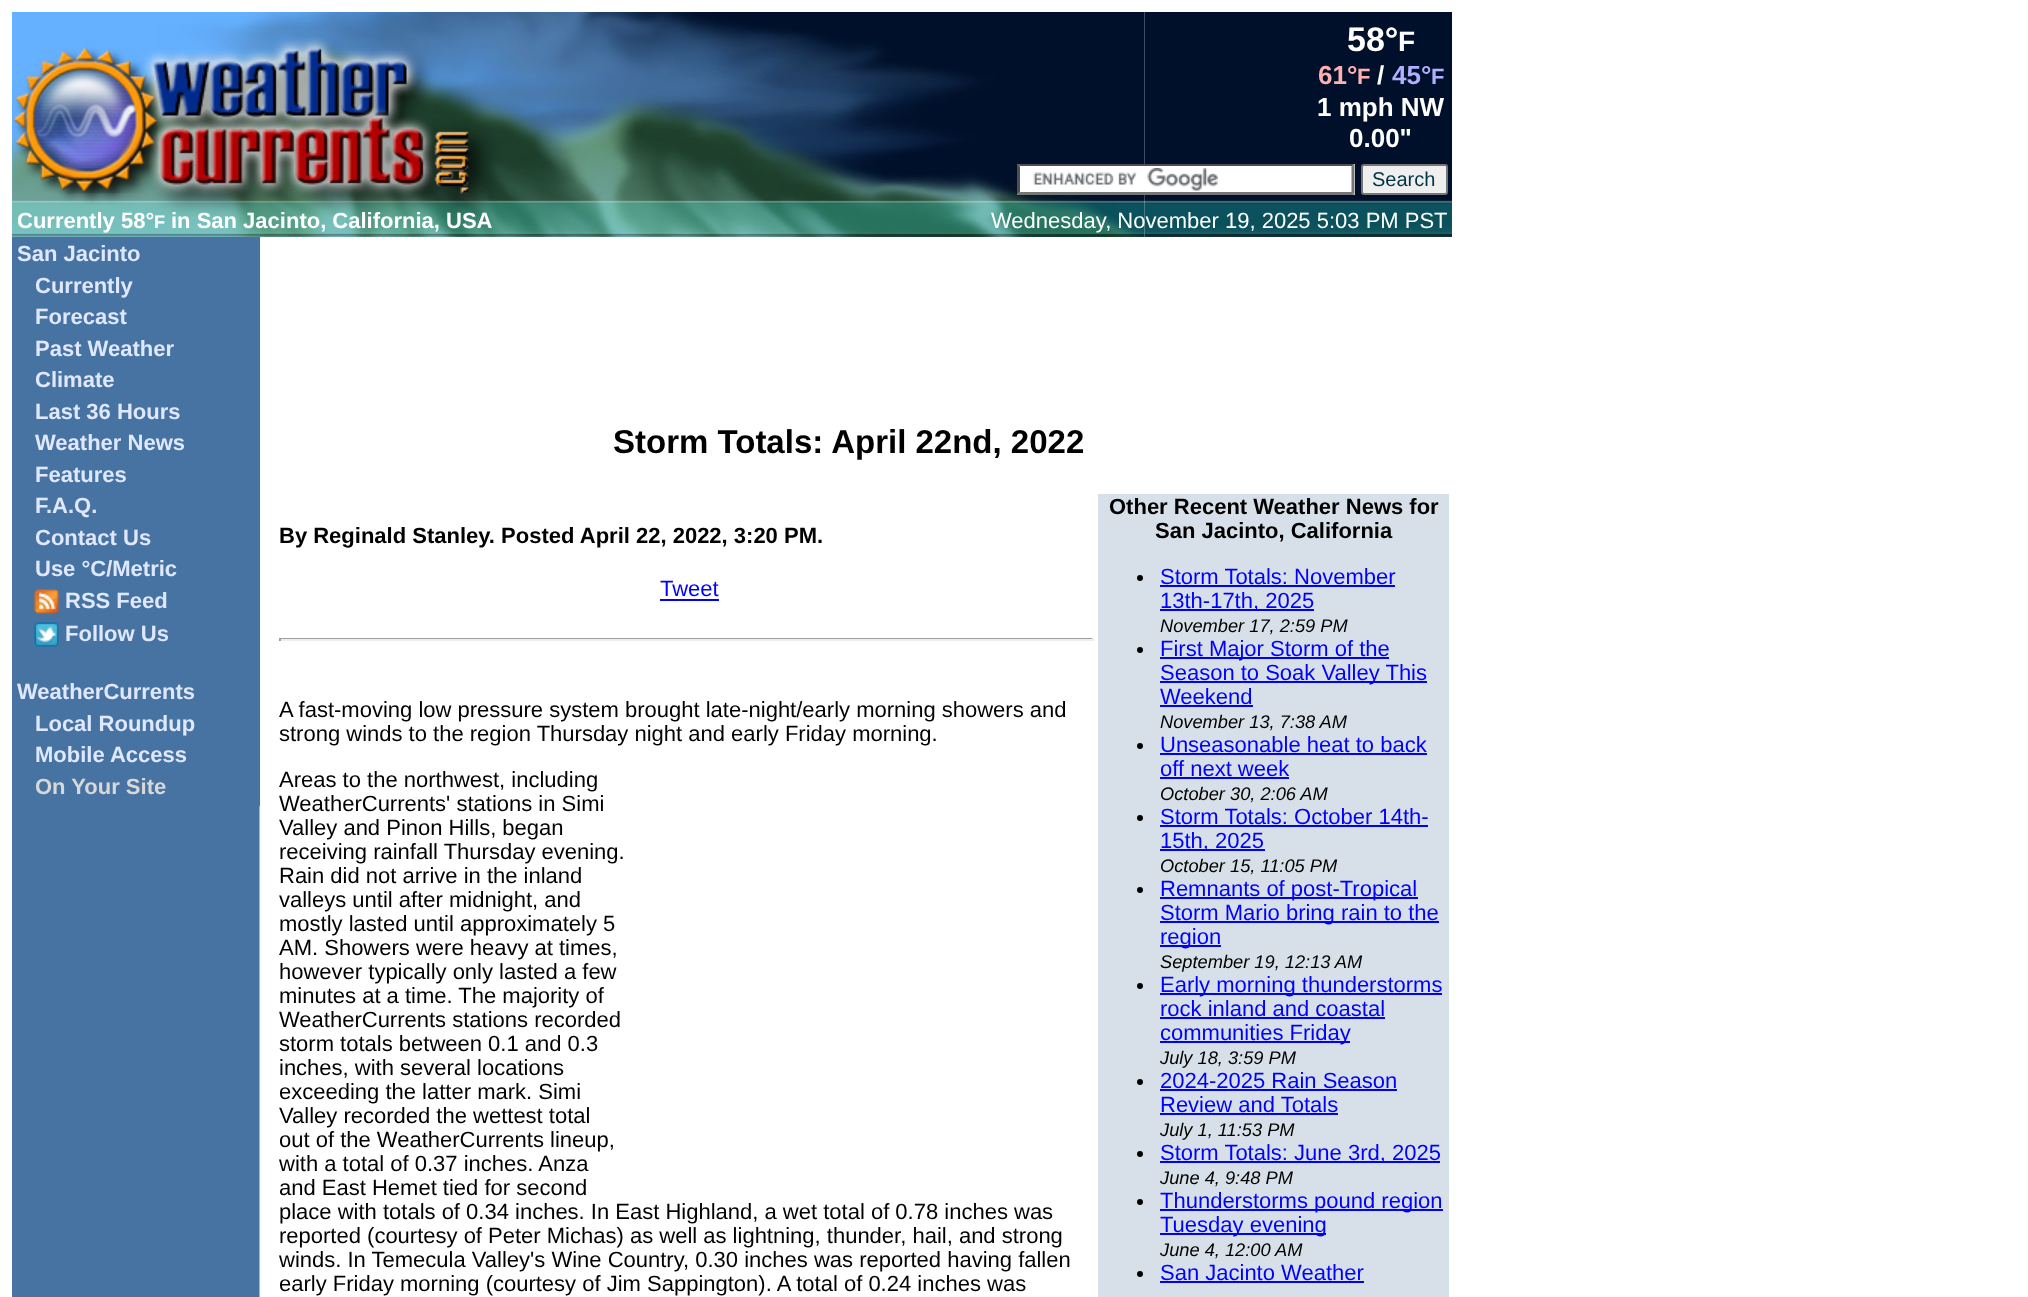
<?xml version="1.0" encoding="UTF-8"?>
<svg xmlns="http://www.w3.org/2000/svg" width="2028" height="1297">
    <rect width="100%" height="100%" fill="#FFFFFF"/>
    <image x="12" y="237" width="249" height="1060" href="img_01.png"/>
    <image x="12" y="12" width="1133" height="225" href="img_04.png"/>
    <image x="1144" y="12" width="308" height="225" href="img_02.png"/>
    <text x="1347" y="51" font-family="Liberation Sans" font-size="34" font-weight="700" fill="#FFFFFF">58°</text>
    <text x="1398" y="51" font-family="Liberation Sans" font-size="28" font-weight="700" fill="#FFFFFF">F</text>
    <text x="1318" y="84" font-family="Liberation Sans" font-size="26" font-weight="700" fill="#FFB0B0">61°</text>
    <text x="1357" y="84" font-family="Liberation Sans" font-size="22" font-weight="700" fill="#FFB0B0">F</text>
    <text x="1377" y="84" font-family="Liberation Sans" font-size="26" font-weight="700" fill="#FFFFFF">/</text>
    <text x="1392" y="84" font-family="Liberation Sans" font-size="26" font-weight="700" fill="#B0B0FF">45°</text>
    <text x="1431" y="84" font-family="Liberation Sans" font-size="22" font-weight="700" fill="#B0B0FF">F</text>
    <text x="1317" y="116" font-family="Liberation Sans" font-size="26" font-weight="700" fill="#FFFFFF">1 mph NW</text>
    <text x="1349" y="147" font-family="Liberation Sans" font-size="26" font-weight="700" fill="#FFFFFF">0.00"</text>
    <rect x="1017" y="164" width="338" height="31" fill="#FFFFFF"/>
    <image x="1033" y="168" width="185" height="23" href="img_03.png"/>
    <path d="M 1017 164 H 1354 L 1352 166 H 1020 Z" fill="#4F4F4F"/>
    <path d="M 1354.5 163.5 V 195 L 1351.5 192 V 166.5 Z" fill="#767676"/>
    <path d="M 1354 195 H 1017 L 1020 192 H 1352 Z" fill="#767676"/>
    <path d="M 1017 195 V 163.5 L 1020 166.5 V 192 Z" fill="#4F4F4F"/>
    <rect x="1362" y="165" width="85" height="29" rx="2" fill="#EFEFEF" stroke="#767676" stroke-width="2"/>
    <text x="1372" y="186" font-family="Liberation Sans" font-size="20" fill="#003344">Search</text>
    <text x="17" y="228" font-family="Liberation Sans" font-size="22" font-weight="700" fill="#FFFFFF">Currently 58°</text>
    <text x="154" y="228" font-family="Liberation Sans" font-size="18.25" font-weight="700" fill="#FFFFFF">F</text>
    <text x="171" y="228" font-family="Liberation Sans" font-size="22" font-weight="700" fill="#FFFFFF">in San Jacinto, California, USA</text>
    <text x="991" y="228" font-family="Liberation Sans" font-size="22" fill="#FFFFFF">Wednesday, November 19, 2025 5:03 PM PST</text>
    <rect x="259" y="237" width="1" height="569" fill="#4773A2"/>
    <text x="17" y="261" font-family="Liberation Sans" font-size="22" font-weight="700" fill="#E0E8FF">San Jacinto</text>
    <text font-family="Liberation Sans" font-size="22" font-weight="700" fill="#E0E8FF">
        <tspan x="35" y="293">Currently</tspan>
        <tspan x="35" y="324">Forecast</tspan>
        <tspan x="35" y="356">Past Weather</tspan>
        <tspan x="35" y="387">Climate</tspan>
        <tspan x="35" y="419">Last 36 Hours</tspan>
        <tspan x="35" y="450">Weather News</tspan>
        <tspan x="35" y="482">Features</tspan>
        <tspan x="35" y="513">F.A.Q.</tspan>
        <tspan x="35" y="545">Contact Us</tspan>
        <tspan x="35" y="576">Use °C/Metric</tspan>
    </text>
    <image x="34" y="589" width="25" height="25" href="img_05.png"/>
    <text x="65" y="608" font-family="Liberation Sans" font-size="22" font-weight="700" fill="#E0E8FF">RSS Feed</text>
    <image x="34" y="622" width="25" height="25" href="img_06.png"/>
    <text x="65" y="641" font-family="Liberation Sans" font-size="22" font-weight="700" fill="#E0E8FF">Follow Us</text>
    <text x="17" y="699" font-family="Liberation Sans" font-size="22" font-weight="700" fill="#E0E8FF">WeatherCurrents</text>
    <text font-family="Liberation Sans" font-size="22" font-weight="700" fill="#E0E8FF">
        <tspan x="35" y="731">Local Roundup</tspan>
        <tspan x="35" y="762">Mobile Access</tspan>
    </text>
    <text x="35" y="794" font-family="Liberation Sans" font-size="22" font-weight="700" fill="#D8D8D8">On Your Site</text>
    <text x="613" y="453" font-family="Liberation Sans" font-size="33" font-weight="700" fill="#000000">Storm Totals: April 22nd, 2022</text>
    <text x="279" y="543" font-family="Liberation Sans" font-size="22" font-weight="700" fill="#000000">By Reginald Stanley. Posted April 22, 2022, 3:20 PM.</text>
    <text x="660" y="596" font-family="Liberation Sans" font-size="22" fill="#0000FF">Tweet</text>
    <rect x="660" y="599" width="59" height="2" fill="#0000FF"/>
    <rect x="279" y="638" width="815" height="1" fill="#9F9F9F"/>
    <rect x="1092" y="638" width="2" height="3" fill="#EEEEEE"/>
    <rect x="279" y="639" width="815" height="2" fill="#EEEEEE"/>
    <rect x="279" y="638" width="2" height="3" fill="#9F9F9F"/>
    <text font-family="Liberation Sans" font-size="22" fill="#000000">
        <tspan x="279" y="717">A fast-moving low pressure system brought late-night/early morning showers and</tspan>
        <tspan x="279" y="741">strong winds to the region Thursday night and early Friday morning.</tspan>
    </text>
    <text font-family="Liberation Sans" font-size="22" fill="#000000">
        <tspan x="279" y="787">Areas to the northwest, including</tspan>
        <tspan x="279" y="811">WeatherCurrents' stations in Simi</tspan>
        <tspan x="279" y="835">Valley and Pinon Hills, began</tspan>
        <tspan x="279" y="859">receiving rainfall Thursday evening.</tspan>
        <tspan x="279" y="883">Rain did not arrive in the inland</tspan>
        <tspan x="279" y="907">valleys until after midnight, and</tspan>
        <tspan x="279" y="931">mostly lasted until approximately 5</tspan>
        <tspan x="279" y="955">AM. Showers were heavy at times,</tspan>
        <tspan x="279" y="979">however typically only lasted a few</tspan>
        <tspan x="279" y="1003">minutes at a time. The majority of</tspan>
        <tspan x="279" y="1027">WeatherCurrents stations recorded</tspan>
        <tspan x="279" y="1051">storm totals between 0.1 and 0.3</tspan>
        <tspan x="279" y="1075">inches, with several locations</tspan>
        <tspan x="279" y="1099">exceeding the latter mark. Simi</tspan>
        <tspan x="279" y="1123">Valley recorded the wettest total</tspan>
        <tspan x="279" y="1147">out of the WeatherCurrents lineup,</tspan>
        <tspan x="279" y="1171">with a total of 0.37 inches. Anza</tspan>
        <tspan x="279" y="1195">and East Hemet tied for second</tspan>
        <tspan x="279" y="1219">place with totals of 0.34 inches. In East Highland, a wet total of 0.78 inches was</tspan>
        <tspan x="279" y="1243">reported (courtesy of Peter Michas) as well as lightning, thunder, hail, and strong</tspan>
        <tspan x="279" y="1267">winds. In Temecula Valley's Wine Country, 0.30 inches was reported having fallen</tspan>
        <tspan x="279" y="1291">early Friday morning (courtesy of Jim Sappington). A total of 0.24 inches was</tspan>
    </text>
    <rect x="1098" y="494" width="351" height="803" fill="#D7E0E9"/>
    <text x="1109" y="514" font-family="Liberation Sans" font-size="22" font-weight="700" fill="#000000">Other Recent Weather News for</text>
    <text x="1155" y="538" font-family="Liberation Sans" font-size="22" font-weight="700" fill="#000000">San Jacinto, California</text>
    <circle cx="1140" cy="578" r="3" fill="#000000"/>
    <text x="1160" y="584" font-family="Liberation Sans" font-size="22" fill="#0000FF">Storm Totals: November</text>
    <rect x="1160" y="585" width="235" height="2" fill="#0000FF"/>
    <rect x="1160" y="609" width="154" height="2" fill="#0000FF"/>
    <text x="1160" y="608" font-family="Liberation Sans" font-size="22" fill="#0000FF">13th-17th, 2025</text>
    <text x="1160" y="632" font-family="Liberation Sans" font-size="18.25" font-style="italic" fill="#000000">November 17, 2:59 PM</text>
    <circle cx="1140" cy="650" r="3" fill="#000000"/>
    <rect x="1160" y="657" width="229" height="2" fill="#0000FF"/>
    <text x="1160" y="656" font-family="Liberation Sans" font-size="22" fill="#0000FF">First Major Storm of the</text>
    <rect x="1160" y="681" width="267" height="2" fill="#0000FF"/>
    <text font-family="Liberation Sans" font-size="22" fill="#0000FF">
        <tspan x="1160" y="680">Season to Soak Valley This</tspan>
        <tspan x="1160" y="704">Weekend</tspan>
    </text>
    <rect x="1160" y="705" width="93" height="2" fill="#0000FF"/>
    <text x="1160" y="728" font-family="Liberation Sans" font-size="18.25" font-style="italic" fill="#000000">November 13, 7:38 AM</text>
    <circle cx="1140" cy="746" r="3" fill="#000000"/>
    <text x="1160" y="752" font-family="Liberation Sans" font-size="22" fill="#0000FF">Unseasonable heat to back</text>
    <rect x="1160" y="753" width="267" height="2" fill="#0000FF"/>
    <text x="1160" y="776" font-family="Liberation Sans" font-size="22" fill="#0000FF">off next week</text>
    <rect x="1160" y="777" width="129" height="2" fill="#0000FF"/>
    <text x="1160" y="800" font-family="Liberation Sans" font-size="18.25" font-style="italic" fill="#000000">October 30, 2:06 AM</text>
    <circle cx="1140" cy="818" r="3" fill="#000000"/>
    <text x="1160" y="824" font-family="Liberation Sans" font-size="22" fill="#0000FF">Storm Totals: October 14th-</text>
    <rect x="1160" y="825" width="268" height="2" fill="#0000FF"/>
    <rect x="1160" y="849" width="105" height="2" fill="#0000FF"/>
    <text x="1160" y="848" font-family="Liberation Sans" font-size="22" fill="#0000FF">15th, 2025</text>
    <text x="1160" y="872" font-family="Liberation Sans" font-size="18.25" font-style="italic" fill="#000000">October 15, 11:05 PM</text>
    <circle cx="1140" cy="890" r="3" fill="#000000"/>
    <rect x="1160" y="897" width="258" height="2" fill="#0000FF"/>
    <text x="1160" y="896" font-family="Liberation Sans" font-size="22" fill="#0000FF">Remnants of post-Tropical</text>
    <rect x="1160" y="921" width="279" height="2" fill="#0000FF"/>
    <text x="1160" y="920" font-family="Liberation Sans" font-size="22" fill="#0000FF">Storm Mario bring rain to the</text>
    <rect x="1160" y="945" width="61" height="2" fill="#0000FF"/>
    <text x="1160" y="944" font-family="Liberation Sans" font-size="22" fill="#0000FF">region</text>
    <text x="1160" y="968" font-family="Liberation Sans" font-size="18.25" font-style="italic" fill="#000000">September 19, 12:13 AM</text>
    <circle cx="1140" cy="986" r="3" fill="#000000"/>
    <rect x="1160" y="993" width="282" height="2" fill="#0000FF"/>
    <text font-family="Liberation Sans" font-size="22" fill="#0000FF">
        <tspan x="1160" y="992">Early morning thunderstorms</tspan>
        <tspan x="1160" y="1016">rock inland and coastal</tspan>
    </text>
    <rect x="1160" y="1017" width="225" height="2" fill="#0000FF"/>
    <rect x="1160" y="1041" width="190" height="2" fill="#0000FF"/>
    <text x="1160" y="1040" font-family="Liberation Sans" font-size="22" fill="#0000FF">communities Friday</text>
    <text x="1160" y="1064" font-family="Liberation Sans" font-size="18.25" font-style="italic" fill="#000000">July 18, 3:59 PM</text>
    <circle cx="1140" cy="1082" r="3" fill="#000000"/>
    <text x="1160" y="1088" font-family="Liberation Sans" font-size="22" fill="#0000FF">2024-2025 Rain Season</text>
    <rect x="1160" y="1089" width="237" height="2" fill="#0000FF"/>
    <text x="1160" y="1112" font-family="Liberation Sans" font-size="22" fill="#0000FF">Review and Totals</text>
    <rect x="1160" y="1113" width="178" height="2" fill="#0000FF"/>
    <text x="1160" y="1136" font-family="Liberation Sans" font-size="18.25" font-style="italic" fill="#000000">July 1, 11:53 PM</text>
    <circle cx="1140" cy="1154" r="3" fill="#000000"/>
    <rect x="1160" y="1161" width="280" height="2" fill="#0000FF"/>
    <text x="1160" y="1160" font-family="Liberation Sans" font-size="22" fill="#0000FF">Storm Totals: June 3rd, 2025</text>
    <text x="1160" y="1184" font-family="Liberation Sans" font-size="18.25" font-style="italic" fill="#000000">June 4, 9:48 PM</text>
    <circle cx="1140" cy="1202" r="3" fill="#000000"/>
    <rect x="1160" y="1209" width="283" height="2" fill="#0000FF"/>
    <text x="1160" y="1208" font-family="Liberation Sans" font-size="22" fill="#0000FF">Thunderstorms pound region</text>
    <rect x="1160" y="1233" width="166" height="2" fill="#0000FF"/>
    <text x="1160" y="1232" font-family="Liberation Sans" font-size="22" fill="#0000FF">Tuesday evening</text>
    <text x="1160" y="1256" font-family="Liberation Sans" font-size="18.25" font-style="italic" fill="#000000">June 4, 12:00 AM</text>
    <circle cx="1140" cy="1274" r="3" fill="#000000"/>
    <text x="1160" y="1280" font-family="Liberation Sans" font-size="22" fill="#0000FF">San Jacinto Weather</text>
    <rect x="1160" y="1281" width="204" height="2" fill="#0000FF"/>
</svg>
